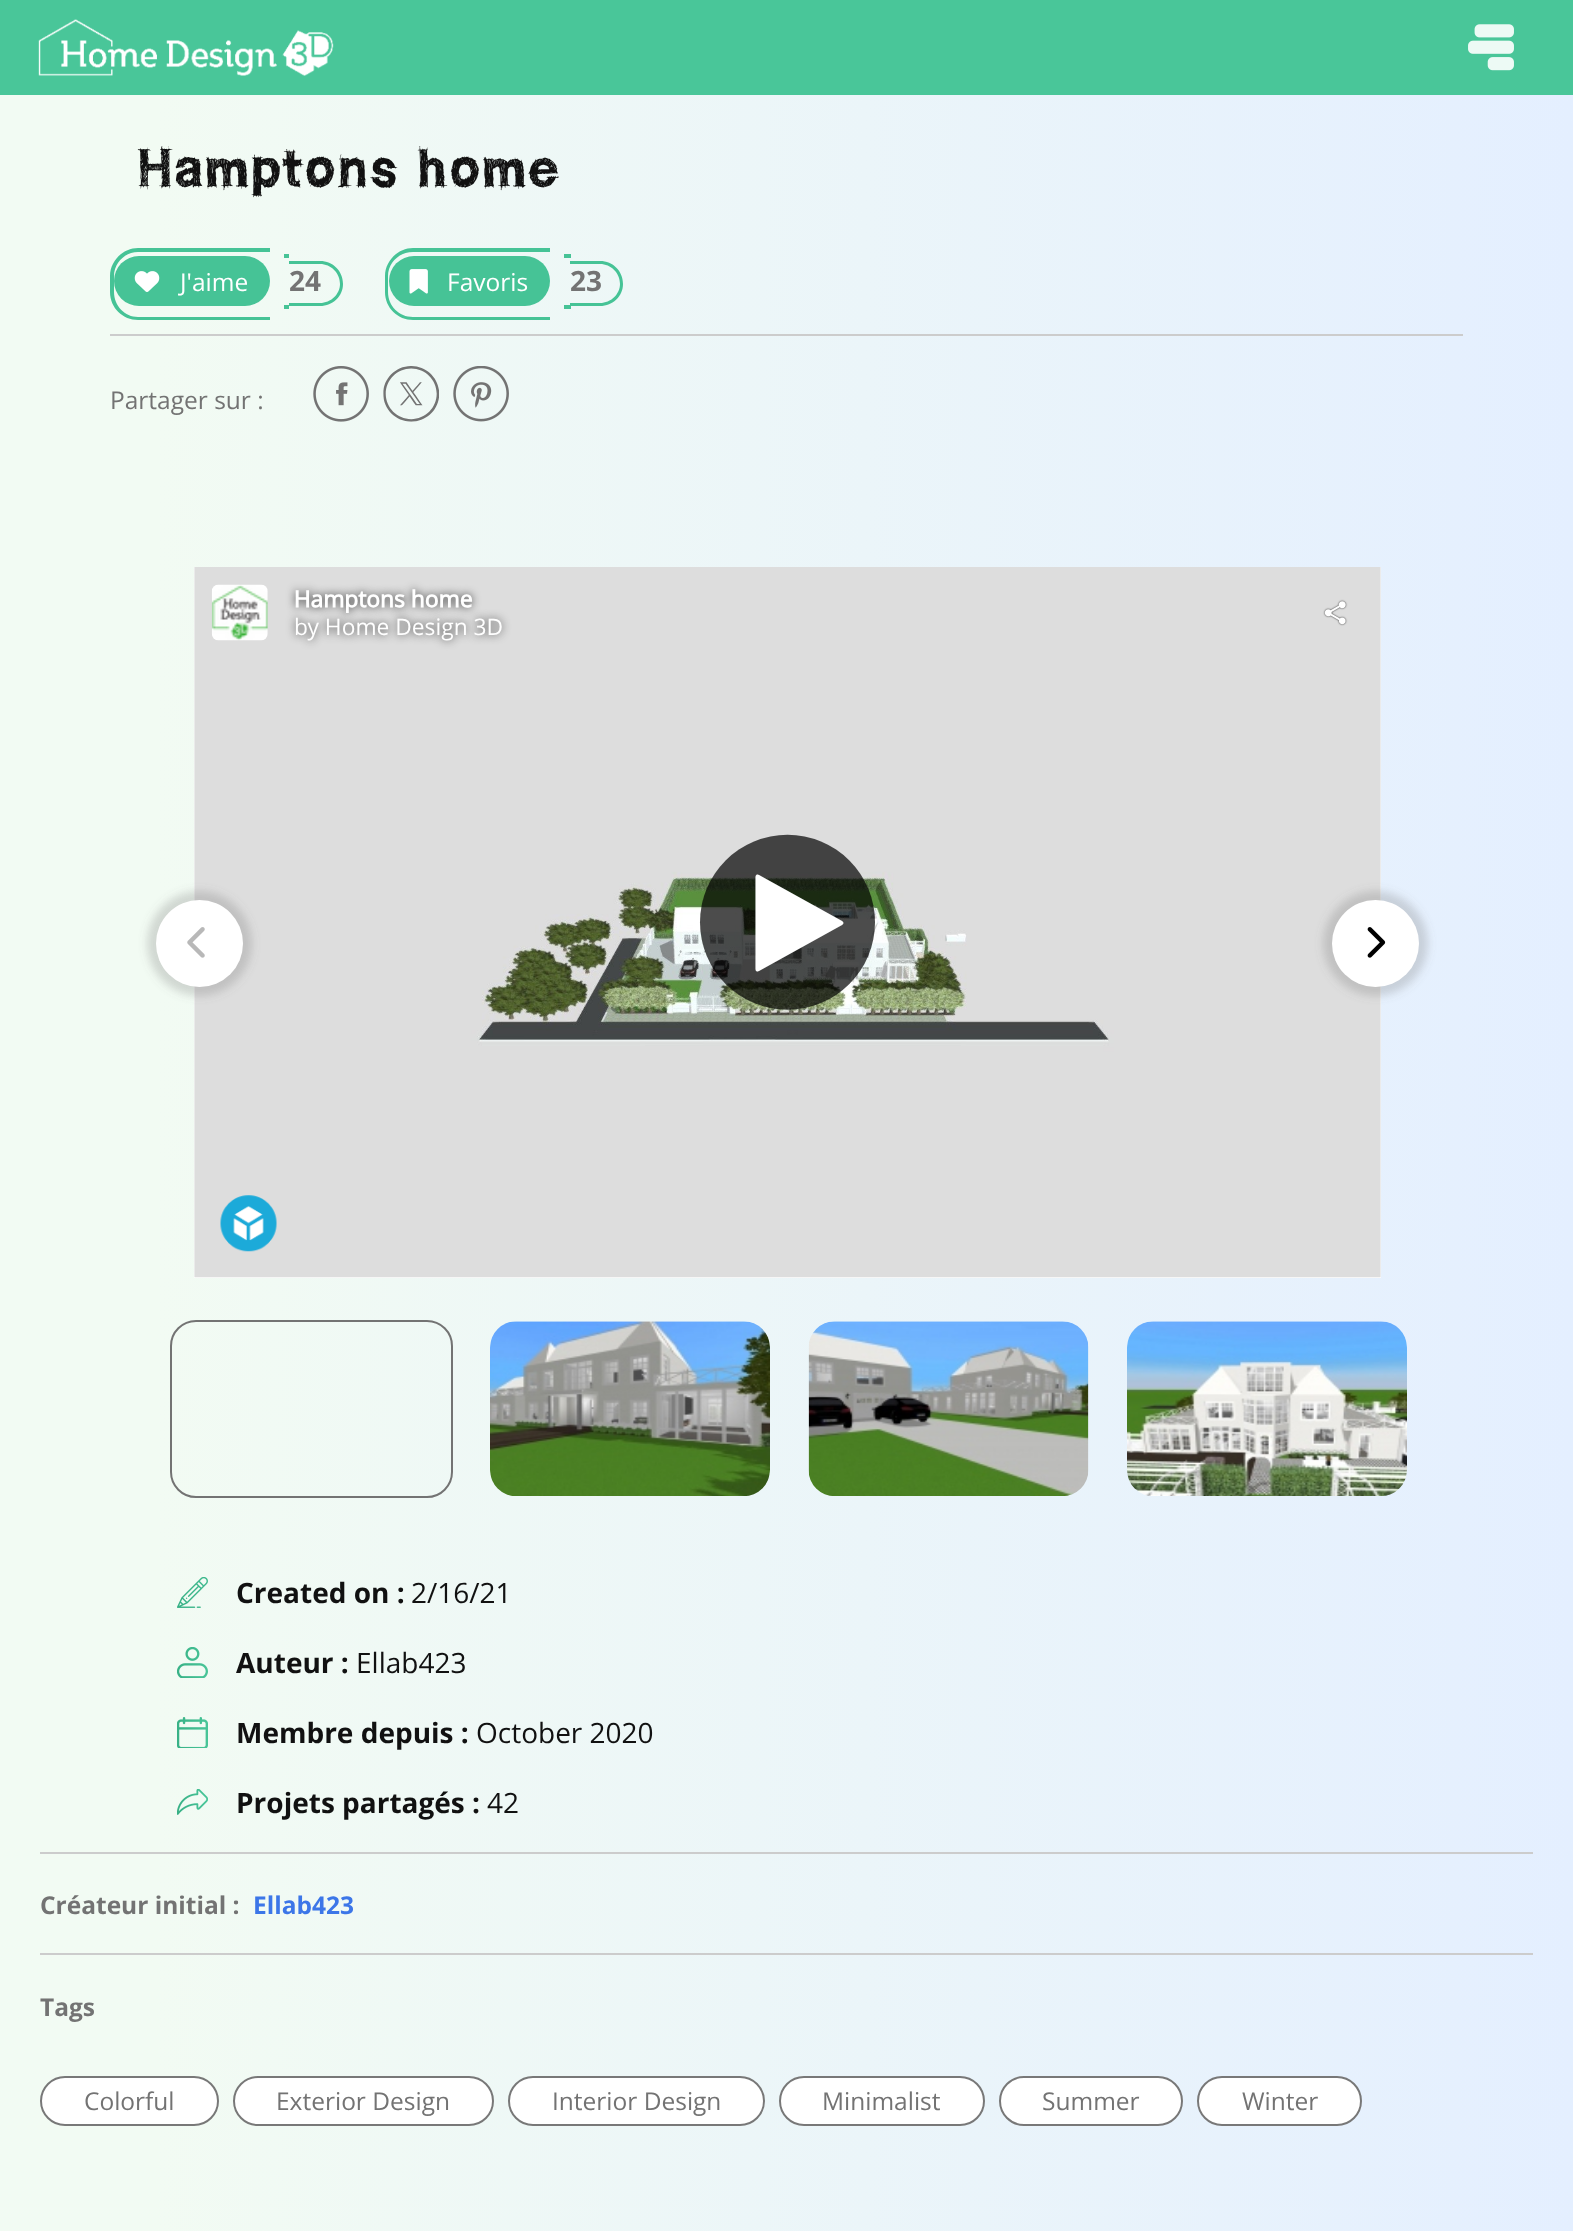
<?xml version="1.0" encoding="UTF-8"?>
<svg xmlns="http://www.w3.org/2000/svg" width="1573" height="2235">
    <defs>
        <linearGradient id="g1" gradientUnits="userSpaceOnUse" x1="0" y1="1163" x2="1573" y2="1163"><stop offset="0.1" stop-color="#F2FBF3"/><stop offset="1" stop-color="#E4EFFF"/></linearGradient>
        <filter id="blur1" x="-50%" y="-200%" width="200%" height="500%"><feGaussianBlur stdDeviation="4.5"/></filter>
    </defs>
    <rect width="100%" height="100%" fill="#FFFFFF"/>
    <rect x="0" y="0" width="1573" height="95" fill="#49C699"/>
    <image x="38" y="19" width="296" height="57" href="img_01.png"/>
    <image x="1468" y="24" width="46" height="47" href="img_02.png"/>
    <rect x="0" y="95" width="1573" height="2136" fill="url(#g1)"/>
    <text x="137" y="186" font-family="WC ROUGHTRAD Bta" font-size="52.5" letter-spacing="1.75" fill="#111111">Hamptons home</text>
    <path d="M 138 248 H 270 V 320 H 138 C 123 320 110 308 110 292 V 276 C 110 261 123 248 138 248 Z M 138 252 H 270 V 317 H 138 C 125 317 114 306 114 292 V 276 C 114 263 125 252 138 252 Z" fill="#46C396" fill-rule="evenodd"/>
    <rect x="284" y="254" width="5" height="4" fill="#46C396"/>
    <rect x="284" y="305" width="5" height="4" fill="#46C396"/>
    <path d="M 289 261 H 320 C 333 261 343 271 343 284 C 343 296 333 306 320 306 H 289 Z M 289 264 H 320 C 331 264 340 273 340 284 C 340 294 331 303 320 303 H 289 Z" fill="#46C396" fill-rule="evenodd"/>
    <rect x="114" y="256" width="156" height="50" rx="25" fill="#46C396"/>
    <image x="134" y="271" width="26" height="21" href="img_03.png"/>
    <text x="180" y="291" font-family="Open Sans" font-size="24.5" fill="#FFFFFF">J'aime</text>
    <text x="289" y="291" font-family="Open Sans" font-size="28" font-weight="700" fill="#737373">24</text>
    <path d="M 413 248 H 550 V 320 H 413 C 398 320 385 308 385 292 V 276 C 385 261 398 248 413 248 Z M 413 252 H 550 V 317 H 413 C 399 317 388 306 388 292 V 276 C 388 263 399 252 413 252 Z" fill="#46C396" fill-rule="evenodd"/>
    <rect x="564" y="254" width="7" height="4" fill="#46C396"/>
    <rect x="564" y="305" width="7" height="4" fill="#46C396"/>
    <path d="M 570 261 H 600 C 613 261 623 271 623 284 C 623 296 613 306 600 306 H 570 Z M 570 264 H 600 C 611 264 620 273 620 284 C 620 294 611 303 600 303 H 570 Z" fill="#46C396" fill-rule="evenodd"/>
    <rect x="389" y="256" width="161" height="50" rx="25" fill="#46C396"/>
    <image x="409" y="269" width="19" height="25" href="img_04.png"/>
    <text x="447" y="291" font-family="Open Sans" font-size="24.5" fill="#FFFFFF">Favoris</text>
    <text x="570" y="291" font-family="Open Sans" font-size="28" font-weight="700" fill="#737373">23</text>
    <rect x="110" y="334" width="1353" height="2" fill="#CCCCCC"/>
    <text x="110" y="409" font-family="Open Sans" font-size="24.5" fill="#737373">Partager sur :</text>
    <image x="313" y="366" width="56" height="56" href="img_05.png"/>
    <image x="383" y="366" width="56" height="56" href="img_06.png"/>
    <image x="453" y="366" width="56" height="56" href="img_07.png"/>
    <image x="194" y="567" width="1187" height="711" href="img_08.png"/>
    <rect x="147" y="891" width="105" height="105" rx="52.5" fill="#6F6F6F" fill-opacity="0.25" filter="url(#blur1)"/>
    <circle cx="199.5" cy="943.5" r="43.5" fill="#FFFFFF"/>
    <image x="187" y="927" width="18" height="31" href="img_09.png"/>
    <rect x="1323" y="891" width="105" height="105" rx="52.5" fill="#6F6F6F" fill-opacity="0.25" filter="url(#blur1)"/>
    <circle cx="1375.5" cy="943.5" r="43.5" fill="#FFFFFF"/>
    <image x="1367" y="927" width="19" height="31" href="img_10.png"/>
    <rect x="171" y="1321" width="281" height="176" rx="25" fill="none" stroke="#737373" stroke-width="2"/>
    <image x="490" y="1321" width="280" height="175" href="img_11.png"/>
    <image x="808" y="1321" width="281" height="175" href="img_12.png"/>
    <image x="1127" y="1321" width="280" height="175" href="img_13.png"/>
    <image x="177" y="1577" width="31" height="31" href="img_14.png"/>
    <text x="236" y="1603" font-family="Open Sans" font-size="28" font-weight="700" fill="#111111">Created on :</text>
    <text x="411" y="1603" font-family="Open Sans" font-size="28" fill="#111111">2/16/21</text>
    <image x="177" y="1647" width="31" height="31" href="img_15.png"/>
    <text x="236" y="1673" font-family="Open Sans" font-size="28" font-weight="700" fill="#111111">Auteur :</text>
    <text x="356" y="1673" font-family="Open Sans" font-size="28" fill="#111111">Ellab423</text>
    <image x="177" y="1717" width="31" height="31" href="img_16.png"/>
    <text x="236" y="1743" font-family="Open Sans" font-size="28" font-weight="700" fill="#111111">Membre depuis :</text>
    <text x="476" y="1743" font-family="Open Sans" font-size="28" fill="#111111">October 2020</text>
    <image x="177" y="1789" width="31" height="26" href="img_17.png"/>
    <text x="236" y="1813" font-family="Open Sans" font-size="28" font-weight="700" fill="#111111">Projets partagés :</text>
    <text x="487" y="1813" font-family="Open Sans" font-size="28" fill="#111111">42</text>
    <rect x="40" y="1852" width="1493" height="2" fill="#CCCCCC"/>
    <text x="40" y="1914" font-family="Open Sans" font-size="24.5" font-weight="700" fill="#737373">Créateur initial :</text>
    <text x="253" y="1914" font-family="Open Sans" font-size="24.5" font-weight="700" fill="#3C76E8">Ellab423</text>
    <rect x="40" y="1953" width="1493" height="2" fill="#CCCCCC"/>
    <text x="40" y="2016" font-family="Open Sans" font-size="24.5" font-weight="700" fill="#737373">Tags</text>
    <rect x="41" y="2077" width="177" height="48" rx="24" fill="#FFFFFF" stroke="#787878" stroke-width="2"/>
    <text x="84" y="2110" font-family="Open Sans" font-size="24.5" fill="#737373">Colorful</text>
    <rect x="234" y="2077" width="259" height="48" rx="24" fill="#FFFFFF" stroke="#787878" stroke-width="2"/>
    <text x="276" y="2110" font-family="Open Sans" font-size="24.5" fill="#737373">Exterior Design</text>
    <rect x="509" y="2077" width="255" height="48" rx="24" fill="#FFFFFF" stroke="#787878" stroke-width="2"/>
    <text x="552" y="2110" font-family="Open Sans" font-size="24.5" fill="#737373">Interior Design</text>
    <rect x="780" y="2077" width="204" height="48" rx="24" fill="#FFFFFF" stroke="#787878" stroke-width="2"/>
    <text x="822" y="2110" font-family="Open Sans" font-size="24.5" fill="#737373">Minimalist</text>
    <rect x="1000" y="2077" width="182" height="48" rx="24" fill="#FFFFFF" stroke="#787878" stroke-width="2"/>
    <text x="1042" y="2110" font-family="Open Sans" font-size="24.5" fill="#737373">Summer</text>
    <rect x="1198" y="2077" width="163" height="48" rx="24" fill="#FFFFFF" stroke="#787878" stroke-width="2"/>
    <text x="1242" y="2110" font-family="Open Sans" font-size="24.5" fill="#737373">Winter</text>
</svg>
